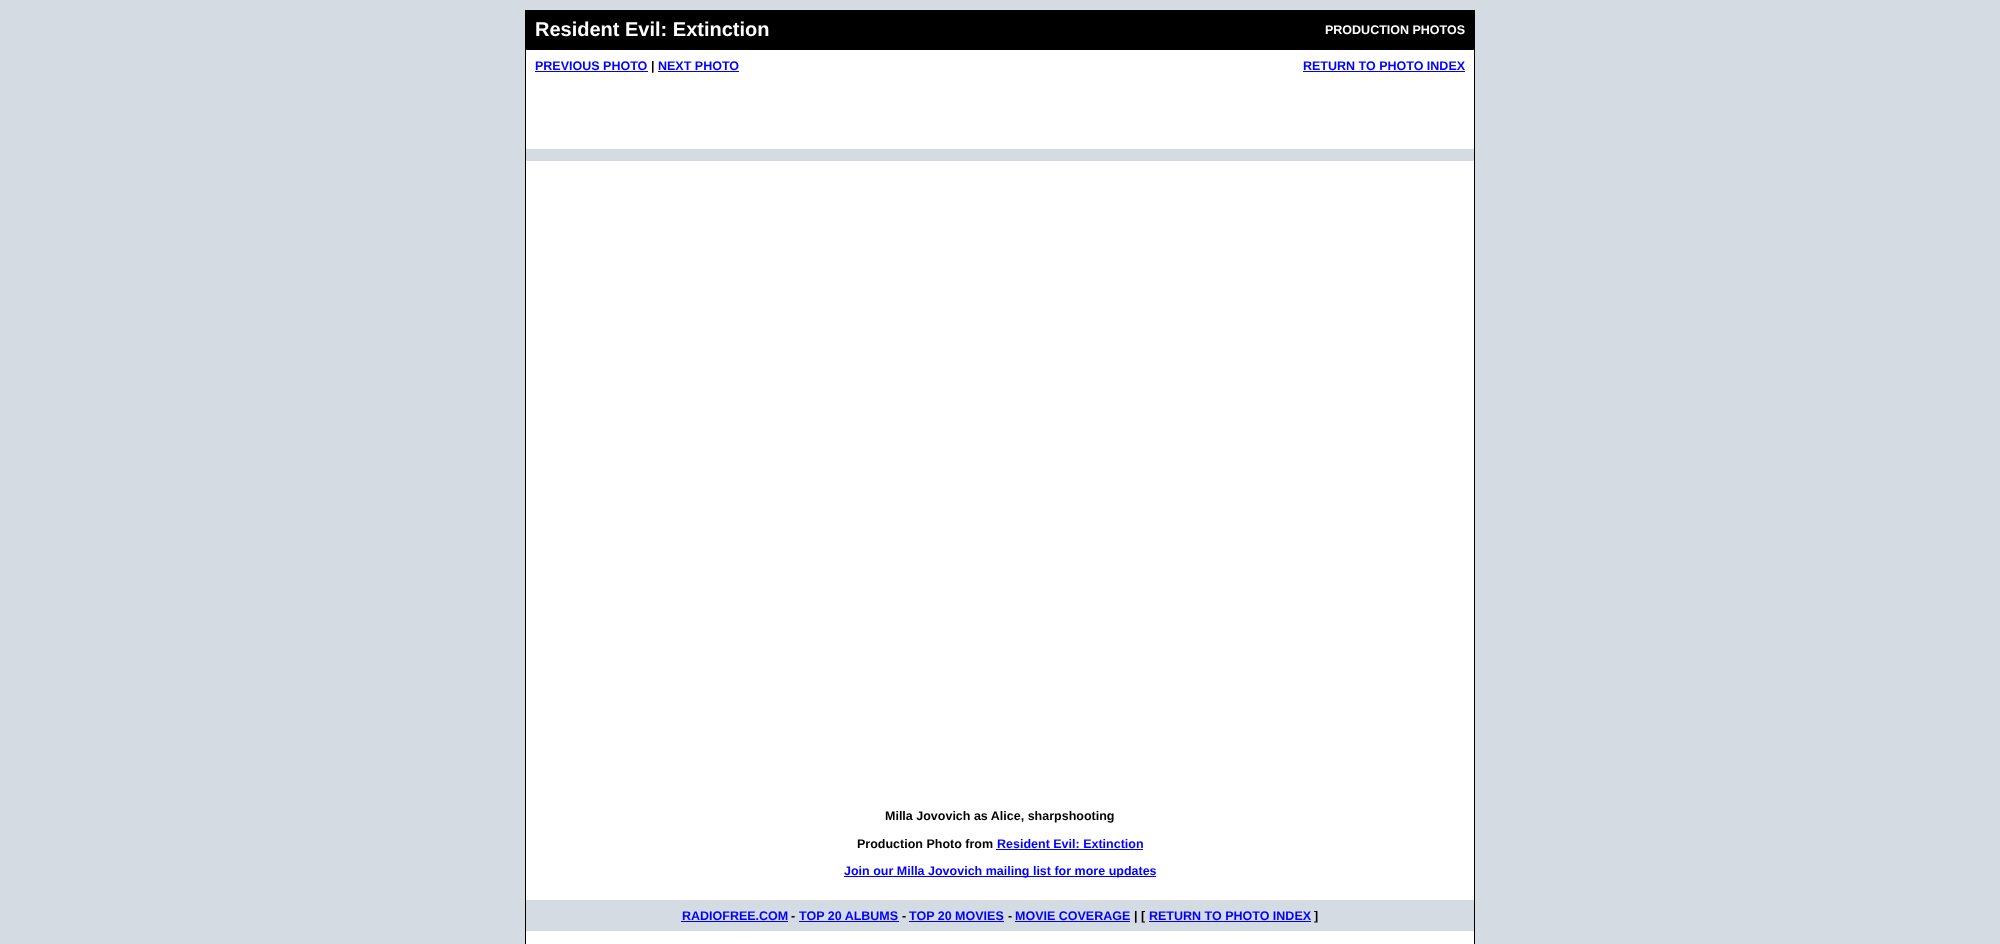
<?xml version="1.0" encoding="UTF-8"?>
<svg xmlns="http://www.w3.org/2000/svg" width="2000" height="944">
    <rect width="100%" height="100%" fill="#D5DBE3"/>
    <rect x="525" y="10" width="1" height="934" fill="#000000"/>
    <rect x="526" y="50" width="948" height="894" fill="#FFFFFF"/>
    <rect x="526" y="10" width="948" height="40" fill="#000000"/>
    <text x="535" y="36" font-family="Liberation Sans" font-size="20" font-weight="700" fill="#FFFFFF">Resident Evil: Extinction</text>
    <text x="1325" y="34" font-family="Liberation Sans" font-size="12.5" font-weight="700" fill="#FFFFFF">PRODUCTION PHOTOS</text>
    <text x="535" y="70" font-family="Liberation Sans" font-size="12.5" font-weight="700" fill="#0000FF">PREVIOUS PHOTO</text>
    <rect x="535" y="71" width="113" height="1" fill="#0000FF"/>
    <text x="651" y="70" font-family="Liberation Sans" font-size="12.5" font-weight="700" fill="#000000">|</text>
    <text x="658" y="70" font-family="Liberation Sans" font-size="12.5" font-weight="700" fill="#0000FF">NEXT PHOTO</text>
    <rect x="658" y="71" width="81" height="1" fill="#0000FF"/>
    <text x="1303" y="70" font-family="Liberation Sans" font-size="12.5" font-weight="700" fill="#0000FF">RETURN TO PHOTO INDEX</text>
    <rect x="1303" y="71" width="162" height="1" fill="#0000FF"/>
    <rect x="526" y="149" width="948" height="12" fill="#D5DBE3"/>
    <text x="885" y="820" font-family="Liberation Sans" font-size="12.5" font-weight="700" fill="#000000">Milla Jovovich as Alice, sharpshooting</text>
    <text x="857" y="848" font-family="Liberation Sans" font-size="12.5" font-weight="700" fill="#000000">Production Photo from</text>
    <text x="997" y="848" font-family="Liberation Sans" font-size="12.5" font-weight="700" fill="#0000FF">Resident Evil: Extinction</text>
    <rect x="996" y="849" width="147" height="1" fill="#0000FF"/>
    <rect x="844" y="876" width="312" height="1" fill="#0000FF"/>
    <text x="844" y="875" font-family="Liberation Sans" font-size="12.5" font-weight="700" fill="#0000FF">Join our Milla Jovovich mailing list for more updates</text>
    <rect x="526" y="900" width="948" height="31" fill="#D5DBE3"/>
    <text x="682" y="920" font-family="Liberation Sans" font-size="12.5" font-weight="700" fill="#0000FF">RADIOFREE.COM</text>
    <rect x="681" y="921" width="107" height="1" fill="#0000FF"/>
    <text x="791" y="920" font-family="Liberation Sans" font-size="12.5" font-weight="700" fill="#000000">-</text>
    <text x="799" y="920" font-family="Liberation Sans" font-size="12.5" font-weight="700" fill="#0000FF">TOP 20 ALBUMS</text>
    <rect x="799" y="921" width="100" height="1" fill="#0000FF"/>
    <text x="902" y="920" font-family="Liberation Sans" font-size="12.5" font-weight="700" fill="#000000">-</text>
    <text x="909" y="920" font-family="Liberation Sans" font-size="12.5" font-weight="700" fill="#0000FF">TOP 20 MOVIES</text>
    <rect x="909" y="921" width="95" height="1" fill="#0000FF"/>
    <text x="1008" y="920" font-family="Liberation Sans" font-size="12.5" font-weight="700" fill="#000000">-</text>
    <text x="1015" y="920" font-family="Liberation Sans" font-size="12.5" font-weight="700" fill="#0000FF">MOVIE COVERAGE</text>
    <rect x="1015" y="921" width="115" height="1" fill="#0000FF"/>
    <text x="1134" y="920" font-family="Liberation Sans" font-size="12.5" font-weight="700" fill="#000000">| [</text>
    <text x="1149" y="920" font-family="Liberation Sans" font-size="12.5" font-weight="700" fill="#0000FF">RETURN TO PHOTO INDEX</text>
    <rect x="1149" y="921" width="162" height="1" fill="#0000FF"/>
    <text x="1314" y="920" font-family="Liberation Sans" font-size="12.5" font-weight="700" fill="#000000">]</text>
    <rect x="1474" y="10" width="1" height="934" fill="#000000"/>
</svg>
